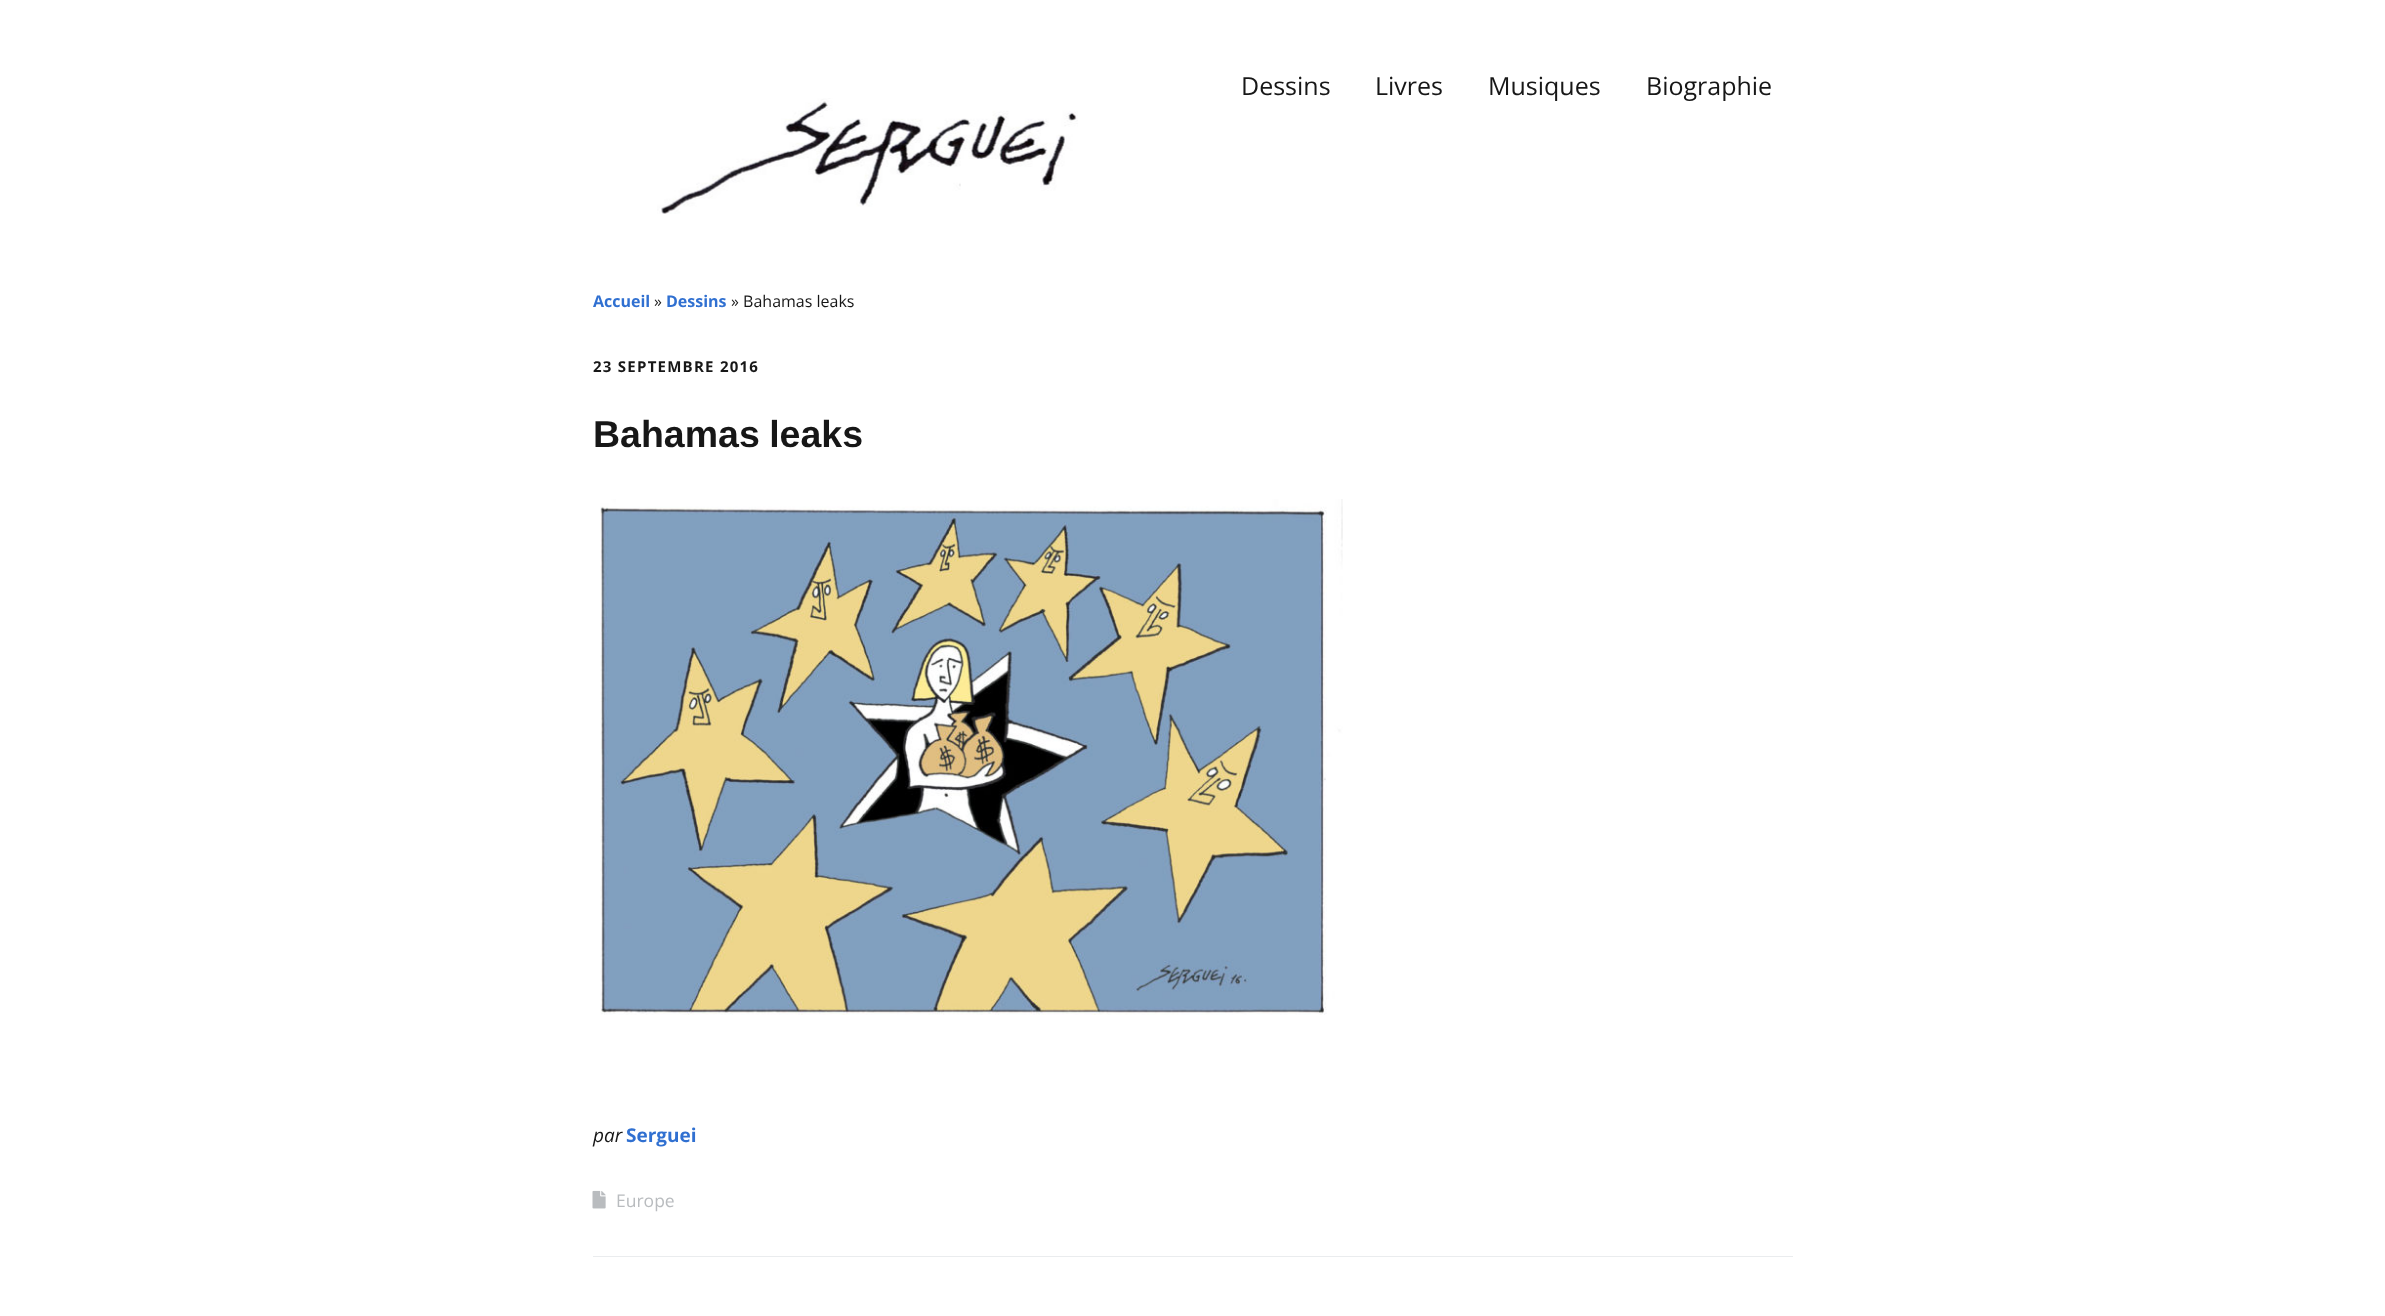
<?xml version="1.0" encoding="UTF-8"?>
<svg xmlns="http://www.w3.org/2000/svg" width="2385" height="1316">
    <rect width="100%" height="100%" fill="#FFFFFF"/>
    <text x="1241" y="95" font-family="Open Sans" font-size="25" fill="#171717">Dessins</text>
    <text x="1375" y="95" font-family="Open Sans" font-size="25" fill="#171717">Livres</text>
    <text x="1488" y="95" font-family="Open Sans" font-size="25" fill="#171717">Musiques</text>
    <text x="1646" y="95" font-family="Open Sans" font-size="25" fill="#171717">Biographie</text>
    <image x="657" y="98" width="421" height="116" href="img_01.png"/>
    <rect x="593" y="1256" width="1200" height="1" fill="#EAECEE"/>
    <text x="593" y="307" font-family="Open Sans" font-size="16" font-weight="700" fill="#3070D1">Accueil</text>
    <text x="654" y="307" font-family="Open Sans" font-size="16" fill="#171717">»</text>
    <text x="666" y="307" font-family="Open Sans" font-size="16" font-weight="700" fill="#3070D1">Dessins</text>
    <text x="731" y="307" font-family="Open Sans" font-size="16" fill="#171717">» Bahamas leaks</text>
    <text x="593" y="372" font-family="Open Sans" font-size="15" font-weight="700" letter-spacing="1.25" fill="#171717">23 SEPTEMBRE 2016</text>
    <text x="593" y="447" word-spacing="-1" font-family="Liberation Sans" font-size="37.5" font-weight="700" fill="#171717">Bahamas leaks</text>
    <image x="600" y="499" width="743" height="516" href="img_02.png"/>
    <text x="593" y="1142" font-family="Open Sans" font-size="19" font-style="italic" fill="#171717">par</text>
    <text x="626" y="1142" font-family="Open Sans" font-size="19" font-weight="700" fill="#3070D1">Serguei</text>
    <image x="592" y="1190" width="14" height="19" href="img_03.png"/>
    <text x="616" y="1207" font-family="Open Sans" font-size="17.5" fill="#B9BCBF">Europe</text>
</svg>
